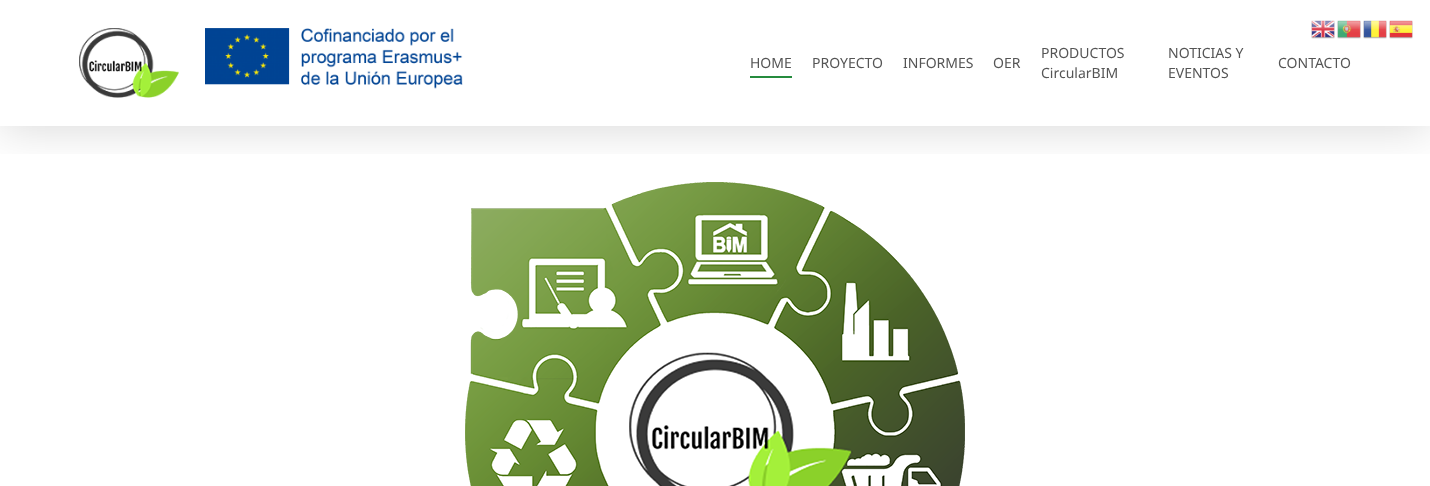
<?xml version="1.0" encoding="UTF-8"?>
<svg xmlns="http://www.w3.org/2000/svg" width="1430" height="486">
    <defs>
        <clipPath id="clip1"><rect x="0" y="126" width="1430" height="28"/></clipPath>
        <filter id="blur1" x="-50%" y="-200%" width="200%" height="500%"><feGaussianBlur stdDeviation="22.5"/></filter>
    </defs>
    <rect width="100%" height="100%" fill="#FFFFFF"/>
    <image x="465" y="182" width="500" height="304" href="img_06.png"/>
    <g clip-path="url(#clip1)">
        <rect x="0" y="3" width="1430" height="126" fill="#000000" fill-opacity="0.15" filter="url(#blur1)"/>
    </g>
    <image x="1311" y="20" width="24" height="19" href="img_01.png"/>
    <image x="1337" y="20" width="24" height="19" href="img_02.png"/>
    <image x="1363" y="20" width="24" height="19" href="img_03.png"/>
    <image x="1389" y="20" width="24" height="19" href="img_04.png"/>
    <image x="79" y="28" width="384" height="70" href="img_05.png"/>
    <text x="750" y="68" font-family="Noto Sans" font-size="14" fill="#555555">HOME</text>
    <rect x="750" y="76" width="42" height="2" fill="#258B3D"/>
    <text x="812" y="68" font-family="Noto Sans" font-size="14" fill="#555555">PROYECTO</text>
    <text x="903" y="68" font-family="Noto Sans" font-size="14" fill="#555555">INFORMES</text>
    <text x="993" y="68" font-family="Noto Sans" font-size="14" fill="#555555">OER</text>
    <text font-family="Noto Sans" font-size="14" fill="#555555">
        <tspan x="1041" y="58">PRODUCTOS</tspan>
        <tspan x="1041" y="78">CircularBIM</tspan>
    </text>
    <text font-family="Noto Sans" font-size="14" fill="#555555">
        <tspan x="1168" y="58">NOTICIAS Y</tspan>
        <tspan x="1168" y="78">EVENTOS</tspan>
    </text>
    <text x="1278" y="68" font-family="Noto Sans" font-size="14" fill="#555555">CONTACTO</text>
</svg>
